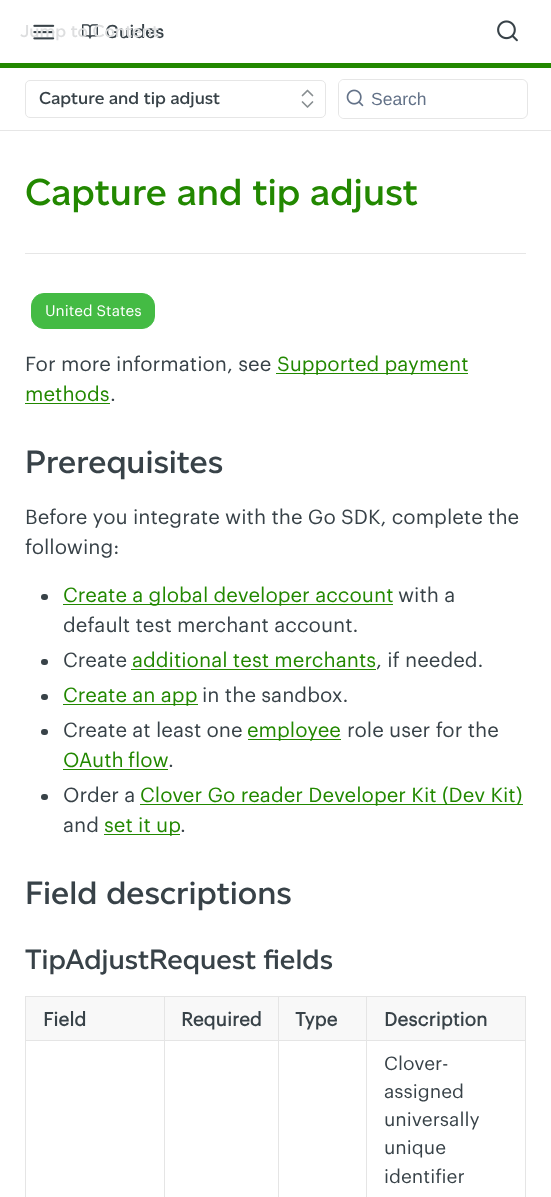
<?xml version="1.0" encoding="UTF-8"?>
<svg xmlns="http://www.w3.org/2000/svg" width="551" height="1197">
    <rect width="100%" height="100%" fill="#FFFFFF"/>
    <rect x="0" y="130" width="551" height="1" fill="#E6E6E6"/>
    <rect x="0" y="63" width="551" height="5" fill="#228800"/>
    <image x="33" y="24" width="22" height="16" href="img_02.png"/>
    <image x="82" y="24" width="16" height="15" href="img_03.png"/>
    <text x="105" y="38" font-family="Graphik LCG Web" font-size="17.5" font-weight="700" fill="#384248">Guides</text>
    <text x="20" y="37" font-family="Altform" font-size="17.5" font-weight="600" fill="#DDDEDF">Jump to Content</text>
    <image x="497" y="20" width="21" height="22" href="img_01.png"/>
    <rect x="25.5" y="80.5" width="300" height="37" rx="4.5" fill="none" stroke="#E6E6E6"/>
    <text x="39" y="104" font-family="Altform" font-size="17.5" font-weight="600" fill="#384248">Capture and tip adjust</text>
    <path d="M 302.5 102 L 307.5 107 L 312.5 102 M 312.5 95.5 L 307.5 90.5 L 302.5 95.5" fill="none" stroke="#888E91" stroke-width="1.7" stroke-linecap="round" stroke-linejoin="round"/>
    <rect x="338.5" y="79.5" width="189" height="39" rx="5.5" fill="none" stroke="#E6E6E6"/>
    <rect x="339" y="80" width="187" height="38" rx="5" fill="#FFFFFF"/>
    <image x="346" y="89" width="18" height="18" href="img_04.png"/>
    <text x="371" y="105" font-family="Liberation Sans" font-size="17.5" fill="#637288">Search</text>
    <rect x="25" y="253" width="501" height="1" fill="#E6E6E6"/>
    <text x="25" y="205" font-family="Altform" font-size="38" font-weight="600" fill="#228800">Capture and tip adjust</text>
    <rect x="31.5" y="293.5" width="123" height="35" rx="12.5" fill="#44BB44" stroke="#44BB44"/>
    <text x="45" y="316" font-family="Graphik LCG Web" font-size="15" fill="#FFFFFF">United States</text>
    <text x="25" y="371" font-family="Graphik LCG Web" font-size="20" fill="#384248">For more information, see</text>
    <rect x="276" y="373" width="192" height="1" fill="#228800"/>
    <text x="277" y="371" font-family="Graphik LCG Web" font-size="20" fill="#228800">Supported payment</text>
    <text x="25" y="401" font-family="Graphik LCG Web" font-size="20" fill="#228800">methods</text>
    <rect x="25" y="403" width="85" height="1" fill="#228800"/>
    <text x="110" y="401" font-family="Graphik LCG Web" font-size="20" fill="#384248">.</text>
    <text x="25" y="473" font-family="Altform" font-size="32.75" font-weight="600" fill="#384248">Prerequisites</text>
    <text font-family="Graphik LCG Web" font-size="20" fill="#384248">
        <tspan x="25" y="524">Before you integrate with the Go SDK, complete the</tspan>
        <tspan x="25" y="554">following:</tspan>
    </text>
    <rect x="41" y="594" width="7" height="6" rx="3" fill="#384248"/>
    <rect x="63" y="604" width="330" height="1" fill="#228800"/>
    <text x="63" y="602" font-family="Graphik LCG Web" font-size="20" fill="#228800">Create a global developer account</text>
    <text x="398" y="602" font-family="Graphik LCG Web" font-size="20" fill="#384248">with a</text>
    <text x="63" y="632" font-family="Graphik LCG Web" font-size="20" fill="#384248">default test merchant account.</text>
    <rect x="41" y="659" width="7" height="6" rx="3" fill="#384248"/>
    <text x="63" y="667" font-family="Graphik LCG Web" font-size="20" fill="#384248">Create</text>
    <text x="132" y="667" font-family="Graphik LCG Web" font-size="20" fill="#228800">additional test merchants</text>
    <rect x="131" y="669" width="245" height="1" fill="#228800"/>
    <text x="376" y="667" font-family="Graphik LCG Web" font-size="20" fill="#384248">, if needed.</text>
    <rect x="41" y="694" width="7" height="6" rx="3" fill="#384248"/>
    <rect x="63" y="704" width="135" height="1" fill="#228800"/>
    <text x="63" y="702" font-family="Graphik LCG Web" font-size="20" fill="#228800">Create an app</text>
    <text x="202" y="702" font-family="Graphik LCG Web" font-size="20" fill="#384248">in the sandbox.</text>
    <rect x="41" y="729" width="7" height="6" rx="3" fill="#384248"/>
    <text x="63" y="737" font-family="Graphik LCG Web" font-size="20" fill="#384248">Create at least one</text>
    <rect x="248" y="739" width="93" height="1" fill="#228800"/>
    <text x="247" y="737" font-family="Graphik LCG Web" font-size="20" fill="#228800">employee</text>
    <text x="347" y="737" font-family="Graphik LCG Web" font-size="20" fill="#384248">role user for the</text>
    <text x="63" y="767" word-spacing="-1" font-family="Graphik LCG Web" font-size="20" fill="#228800">OAuth flow</text>
    <rect x="63" y="769" width="105" height="1" fill="#228800"/>
    <text x="168" y="767" font-family="Graphik LCG Web" font-size="20" fill="#384248">.</text>
    <rect x="41" y="794" width="7" height="6" rx="3" fill="#384248"/>
    <text x="63" y="802" font-family="Graphik LCG Web" font-size="20" fill="#384248">Order a</text>
    <rect x="140" y="804" width="383" height="1" fill="#228800"/>
    <text x="140" y="802" font-family="Graphik LCG Web" font-size="20" fill="#228800">Clover Go reader Developer Kit (Dev Kit)</text>
    <text x="63" y="832" font-family="Graphik LCG Web" font-size="20" fill="#384248">and</text>
    <rect x="104" y="834" width="76" height="1" fill="#228800"/>
    <text x="104" y="832" font-family="Graphik LCG Web" font-size="20" fill="#228800">set it up</text>
    <text x="180" y="832" font-family="Graphik LCG Web" font-size="20" fill="#384248">.</text>
    <text x="25" y="904" font-family="Altform" font-size="32.75" font-weight="600" fill="#384248">Field descriptions</text>
    <text x="25" y="969" font-family="Altform" font-size="28.1" font-weight="600" fill="#384248">TipAdjustRequest fields</text>
    <rect x="25" y="996" width="501" height="1" fill="#E5E5E5"/>
    <rect x="525" y="996" width="1" height="201" fill="#E5E5E5"/>
    <rect x="25" y="996" width="1" height="201" fill="#E5E5E5"/>
    <rect x="26" y="997" width="499" height="43" fill="#F8F8F8"/>
    <text x="43" y="1026" font-family="Graphik LCG Web" font-size="18.75" font-weight="700" fill="#384248">Field</text>
    <rect x="366" y="1040" width="160" height="1" fill="#E5E5E5"/>
    <rect x="366" y="1040" width="1" height="157" fill="#E5E5E5"/>
    <rect x="278" y="1040" width="90" height="1" fill="#E5E5E5"/>
    <rect x="278" y="1040" width="1" height="157" fill="#E5E5E5"/>
    <rect x="164" y="1040" width="115" height="1" fill="#E5E5E5"/>
    <rect x="164" y="1040" width="1" height="157" fill="#E5E5E5"/>
    <rect x="25" y="1040" width="140" height="1" fill="#E5E5E5"/>
    <rect x="164" y="996" width="1" height="45" fill="#E5E5E5"/>
    <text x="181" y="1026" font-family="Graphik LCG Web" font-size="18.75" font-weight="700" fill="#384248">Required</text>
    <rect x="278" y="996" width="1" height="45" fill="#E5E5E5"/>
    <text x="295" y="1026" font-family="Graphik LCG Web" font-size="18.75" font-weight="700" fill="#384248">Type</text>
    <rect x="366" y="996" width="1" height="45" fill="#E5E5E5"/>
    <text x="384" y="1026" font-family="Graphik LCG Web" font-size="18.75" font-weight="700" fill="#384248">Description</text>
    <text font-family="Graphik LCG Web" font-size="18.75" fill="#384248">
        <tspan x="384" y="1070">Clover-</tspan>
        <tspan x="384" y="1098">assigned</tspan>
        <tspan x="384" y="1126">universally</tspan>
        <tspan x="384" y="1154">unique</tspan>
        <tspan x="384" y="1183">identifier</tspan>
    </text>
</svg>
